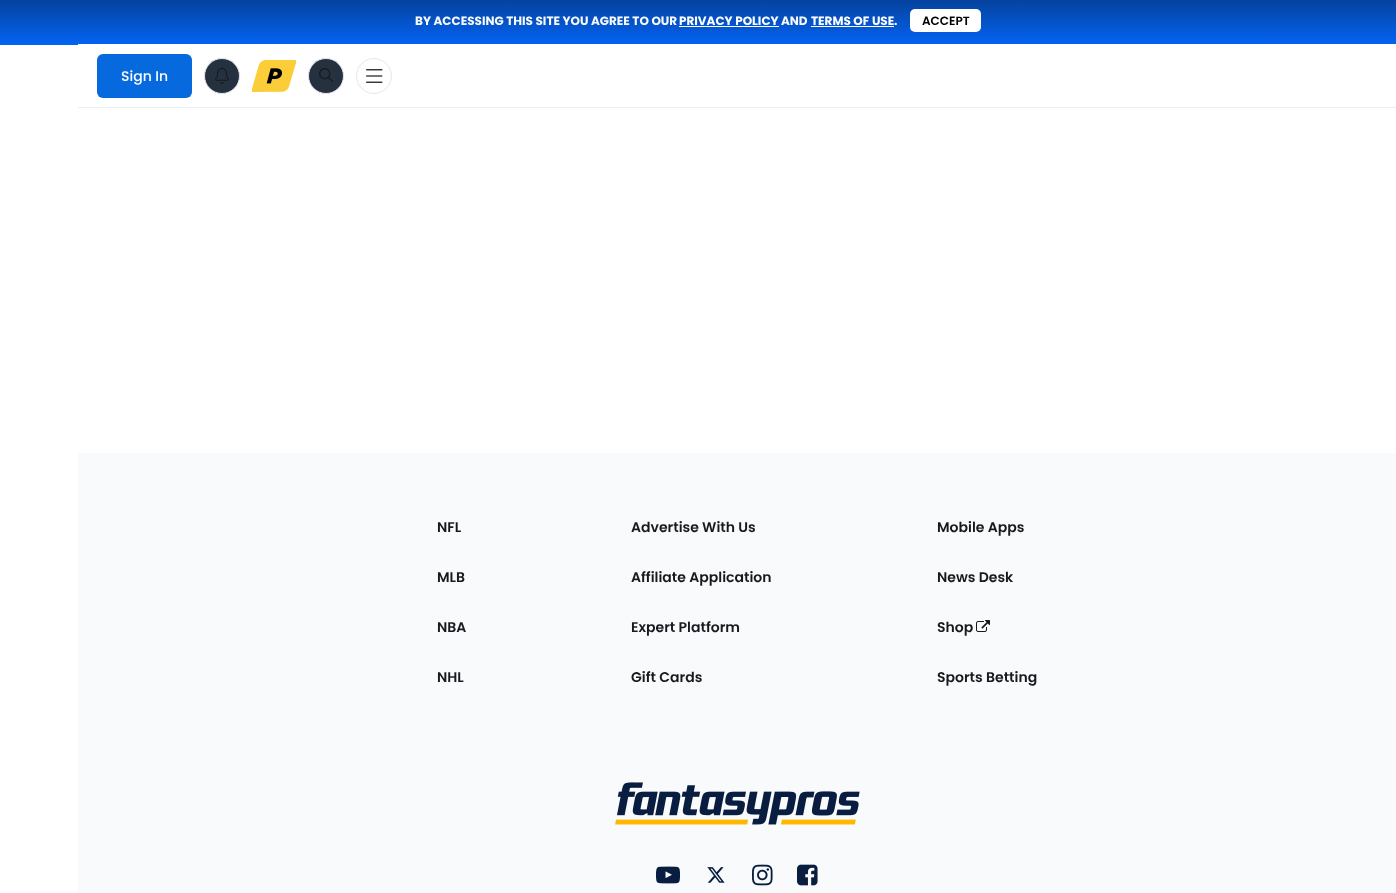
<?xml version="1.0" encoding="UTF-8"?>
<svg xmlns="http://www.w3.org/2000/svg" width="1396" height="893">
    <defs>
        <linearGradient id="g1" gradientUnits="userSpaceOnUse" x1="698" y1="-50" x2="698" y2="44"><stop offset="0" stop-color="#081D3F"/><stop offset="1" stop-color="#0363F2"/></linearGradient>
    </defs>
    <rect width="100%" height="100%" fill="#FFFFFF"/>
    <rect x="0" y="0" width="1396" height="44" fill="url(#g1)"/>
    <rect x="0" y="44" width="78" height="1" fill="#0363F2"/>
    <text x="415" y="25" font-family="Poppins" font-size="12" font-weight="700" fill="#F8FAFB">BY ACCESSING THIS SITE YOU AGREE TO OUR</text>
    <text x="679" y="25" font-family="Poppins" font-size="12" font-weight="700" fill="#FFFFFF">PRIVACY POLICY</text>
    <rect x="679" y="26" width="100" height="1" fill="#FFFFFF"/>
    <text x="781" y="25" font-family="Poppins" font-size="12" font-weight="700" fill="#F8FAFB">AND</text>
    <text x="811" y="25" font-family="Poppins" font-size="12" font-weight="700" fill="#FFFFFF">TERMS OF USE</text>
    <rect x="811" y="26" width="83" height="1" fill="#FFFFFF"/>
    <text x="894" y="25" font-family="Poppins" font-size="12" font-weight="700" fill="#F8FAFB">.</text>
    <rect x="910" y="9" width="71" height="23" rx="5" fill="#FFFFFF"/>
    <text x="922" y="25" font-family="Poppins" font-size="12" font-weight="600" fill="#000000">ACCEPT</text>
    <rect x="78" y="107" width="1318" height="1" fill="#EBEEF4"/>
    <rect x="97" y="54" width="95" height="44" rx="6" fill="#0769DE"/>
    <text x="121" y="81" font-family="Poppins" font-size="14" font-weight="500" fill="#FFFFFF">Sign In</text>
    <circle cx="222" cy="76" r="17.5" fill="#263140" stroke="#E2E7EE"/>
    <image x="215" y="67" width="14" height="17" href="img_01.png"/>
    <image x="252" y="60" width="44" height="32" href="img_02.png"/>
    <circle cx="326" cy="76" r="17.5" fill="#263140" stroke="#E2E7EE"/>
    <image x="319" y="68" width="14" height="14" href="img_03.png"/>
    <circle cx="374" cy="76" r="17.5" fill="none" stroke="#E2E7EE"/>
    <image x="366" y="69" width="17" height="14" href="img_04.png"/>
    <rect x="78" y="453" width="1318" height="440" fill="#F9FAFC"/>
    <text x="437" y="532" font-family="Poppins" font-size="14" font-weight="600" fill="#16191D">NFL</text>
    <text x="437" y="582" font-family="Poppins" font-size="14" font-weight="600" fill="#16191D">MLB</text>
    <text x="437" y="632" font-family="Poppins" font-size="14" font-weight="600" fill="#16191D">NBA</text>
    <text x="437" y="682" font-family="Poppins" font-size="14" font-weight="600" fill="#16191D">NHL</text>
    <text x="631" y="532" font-family="Poppins" font-size="14" font-weight="600" fill="#16191D">Advertise With Us</text>
    <text x="631" y="582" font-family="Poppins" font-size="14" font-weight="600" fill="#16191D">Affiliate Application</text>
    <text x="631" y="632" font-family="Poppins" font-size="14" font-weight="600" fill="#16191D">Expert Platform</text>
    <text x="631" y="682" font-family="Poppins" font-size="14" font-weight="600" fill="#16191D">Gift Cards</text>
    <text x="937" y="532" font-family="Poppins" font-size="14" font-weight="600" fill="#16191D">Mobile Apps</text>
    <text x="937" y="582" font-family="Poppins" font-size="14" font-weight="600" fill="#16191D">News Desk</text>
    <text x="937" y="632" font-family="Poppins" font-size="14" font-weight="600" fill="#16191D">Shop</text>
    <image x="976" y="620" width="14" height="12" href="img_05.png"/>
    <text x="937" y="682" font-family="Poppins" font-size="14" font-weight="600" fill="#16191D">Sports Betting</text>
    <image x="615" y="782" width="245" height="43" href="img_06.png"/>
    <image x="656" y="866" width="24" height="18" href="img_07.png"/>
    <image x="707" y="867" width="18" height="16" href="img_08.png"/>
    <image x="752" y="864" width="21" height="22" href="img_09.png"/>
    <image x="797" y="864" width="21" height="22" href="img_10.png"/>
</svg>
